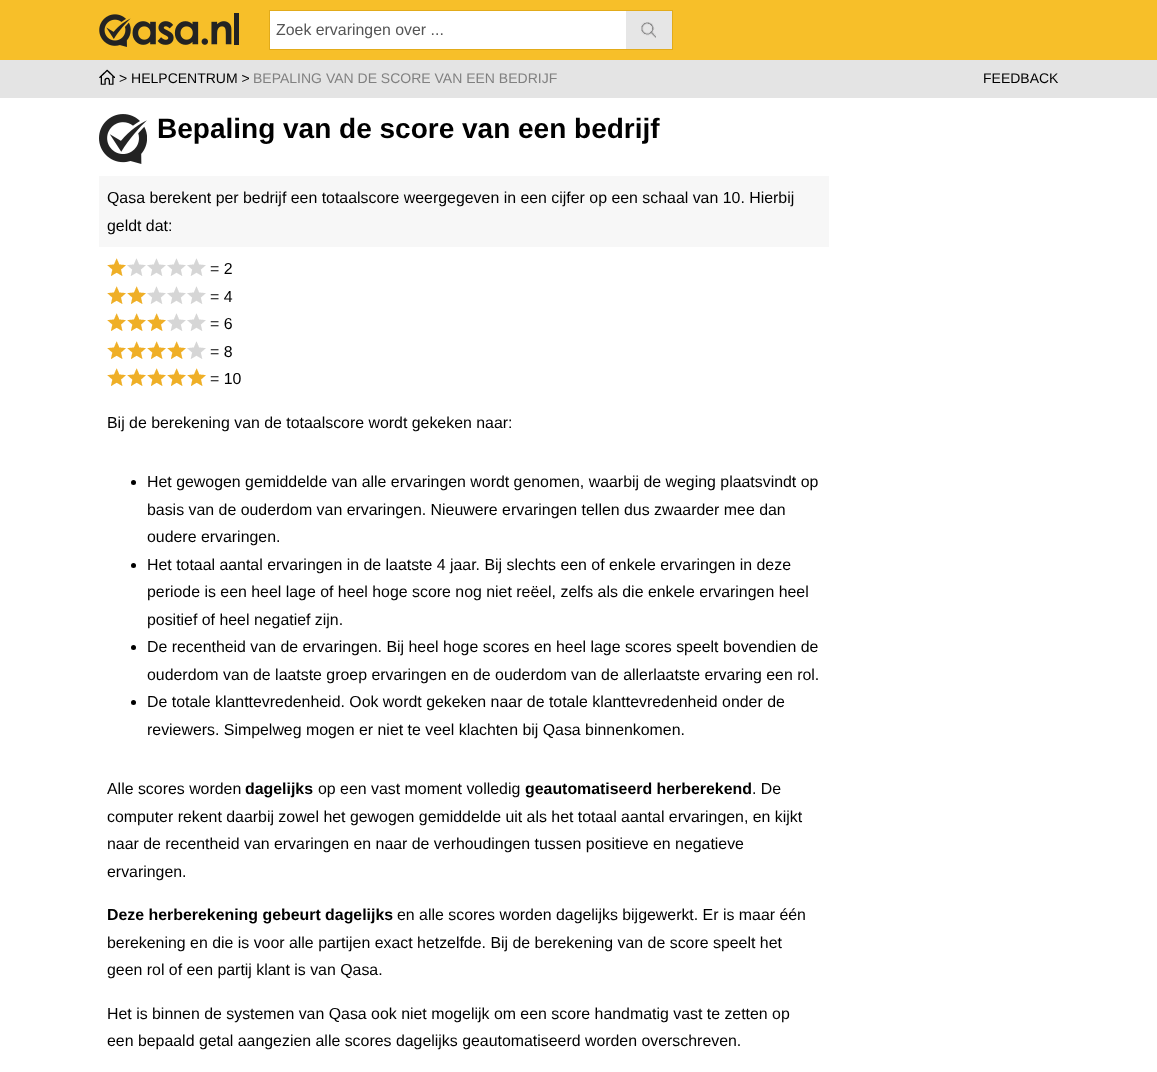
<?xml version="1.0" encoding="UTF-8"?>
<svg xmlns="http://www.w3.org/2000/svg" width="1157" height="1072">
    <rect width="100%" height="100%" fill="#E4E4E4"/>
    <rect x="0" y="0" width="1157" height="60" fill="#F7BF29"/>
    <image x="99" y="13" width="140" height="34" href="img_01.png"/>
    <rect x="269.5" y="10.5" width="403" height="39" fill="none" stroke="#E2AB1A"/>
    <rect x="270" y="11" width="356" height="38" fill="#FFFFFF"/>
    <text x="276" y="35" font-family="Liberation Sans" font-size="15.9" fill="#555555">Zoek ervaringen over ...</text>
    <rect x="626" y="11" width="46" height="38" fill="#E6E6E6"/>
    <image x="641" y="22" width="15" height="16" href="img_02.png"/>
    <image x="99" y="69" width="16" height="16" href="img_03.png"/>
    <text x="119" y="83" font-family="Liberation Sans" font-size="14" fill="#000000">&gt; HELPCENTRUM &gt;</text>
    <text x="253" y="83" font-family="Liberation Sans" font-size="14" fill="#808080">BEPALING VAN DE SCORE VAN EEN BEDRIJF</text>
    <text x="983" y="83" font-family="Liberation Sans" font-size="14" fill="#000000">FEEDBACK</text>
    <rect x="0" y="98" width="1157" height="974" fill="#FFFFFF"/>
    <image x="99" y="114" width="48" height="50" href="img_04.png"/>
    <text x="157" y="138" font-family="Liberation Sans" font-size="28" font-weight="700" fill="#000000">Bepaling van de score van een bedrijf</text>
    <rect x="99" y="176" width="730" height="71" fill="#F7F7F7"/>
    <text font-family="Liberation Sans" font-size="15.9" fill="#000000">
        <tspan x="107" y="203">Qasa berekent per bedrijf een totaalscore weergegeven in een cijfer op een schaal van 10. Hierbij</tspan>
        <tspan x="107" y="231">geldt dat:</tspan>
    </text>
    <image x="107" y="258" width="99" height="18" href="img_05.png"/>
    <text x="210" y="274" font-family="Liberation Sans" font-size="15.9" fill="#000000">= 2</text>
    <image x="107" y="286" width="99" height="18" href="img_06.png"/>
    <text x="210" y="302" font-family="Liberation Sans" font-size="15.9" fill="#000000">= 4</text>
    <image x="107" y="313" width="99" height="18" href="img_07.png"/>
    <text x="210" y="329" font-family="Liberation Sans" font-size="15.9" fill="#000000">= 6</text>
    <image x="107" y="341" width="99" height="18" href="img_08.png"/>
    <text x="210" y="357" font-family="Liberation Sans" font-size="15.9" fill="#000000">= 8</text>
    <image x="107" y="368" width="99" height="18" href="img_09.png"/>
    <text x="210" y="384" font-family="Liberation Sans" font-size="15.9" fill="#000000">= 10</text>
    <text x="107" y="428" font-family="Liberation Sans" font-size="15.9" fill="#000000">Bij de berekening van de totaalscore wordt gekeken naar:</text>
    <circle cx="133.5" cy="482.5" r="2.5" fill="#000000"/>
    <text font-family="Liberation Sans" font-size="15.9" fill="#000000">
        <tspan x="147" y="487">Het gewogen gemiddelde van alle ervaringen wordt genomen, waarbij de weging plaatsvindt op</tspan>
        <tspan x="147" y="515">basis van de ouderdom van ervaringen. Nieuwere ervaringen tellen dus zwaarder mee dan</tspan>
        <tspan x="147" y="542">oudere ervaringen.</tspan>
    </text>
    <circle cx="133.5" cy="565.5" r="2.5" fill="#000000"/>
    <text font-family="Liberation Sans" font-size="15.9" fill="#000000">
        <tspan x="147" y="570">Het totaal aantal ervaringen in de laatste 4 jaar. Bij slechts een of enkele ervaringen in deze</tspan>
        <tspan x="147" y="597">periode is een heel lage of heel hoge score nog niet reëel, zelfs als die enkele ervaringen heel</tspan>
        <tspan x="147" y="625">positief of heel negatief zijn.</tspan>
    </text>
    <circle cx="133.5" cy="647.5" r="2.5" fill="#000000"/>
    <text font-family="Liberation Sans" font-size="15.9" fill="#000000">
        <tspan x="147" y="652">De recentheid van de ervaringen. Bij heel hoge scores en heel lage scores speelt bovendien de</tspan>
        <tspan x="147" y="680">ouderdom van de laatste groep ervaringen en de ouderdom van de allerlaatste ervaring een rol.</tspan>
    </text>
    <circle cx="133.5" cy="702.5" r="2.5" fill="#000000"/>
    <text font-family="Liberation Sans" font-size="15.9" fill="#000000">
        <tspan x="147" y="707">De totale klanttevredenheid. Ook wordt gekeken naar de totale klanttevredenheid onder de</tspan>
        <tspan x="147" y="735">reviewers. Simpelweg mogen er niet te veel klachten bij Qasa binnenkomen.</tspan>
    </text>
    <text x="107" y="794" font-family="Liberation Sans" font-size="15.9" fill="#000000">Alle scores worden</text>
    <text x="245" y="794" font-family="Liberation Sans" font-size="15.9" font-weight="700" fill="#000000">dagelijks</text>
    <text x="318" y="794" font-family="Liberation Sans" font-size="15.9" fill="#000000">op een vast moment volledig</text>
    <text x="525" y="794" font-family="Liberation Sans" font-size="15.9" font-weight="700" fill="#000000">geautomatiseerd herberekend</text>
    <text x="752" y="794" font-family="Liberation Sans" font-size="15.9" fill="#000000">. De</text>
    <text font-family="Liberation Sans" font-size="15.9" fill="#000000">
        <tspan x="107" y="822">computer rekent daarbij zowel het gewogen gemiddelde uit als het totaal aantal ervaringen, en kijkt</tspan>
        <tspan x="107" y="849">naar de recentheid van ervaringen en naar de verhoudingen tussen positieve en negatieve</tspan>
        <tspan x="107" y="877">ervaringen.</tspan>
    </text>
    <text x="107" y="920" font-family="Liberation Sans" font-size="15.9" font-weight="700" fill="#000000">Deze herberekening gebeurt dagelijks</text>
    <text x="397" y="920" font-family="Liberation Sans" font-size="15.9" fill="#000000">en alle scores worden dagelijks bijgewerkt. Er is maar één</text>
    <text font-family="Liberation Sans" font-size="15.9" fill="#000000">
        <tspan x="107" y="948">berekening en die is voor alle partijen exact hetzelfde. Bij de berekening van de score speelt het</tspan>
        <tspan x="107" y="975">geen rol of een partij klant is van Qasa.</tspan>
    </text>
    <text font-family="Liberation Sans" font-size="15.9" fill="#000000">
        <tspan x="107" y="1019">Het is binnen de systemen van Qasa ook niet mogelijk om een score handmatig vast te zetten op</tspan>
        <tspan x="107" y="1046">een bepaald getal aangezien alle scores dagelijks geautomatiseerd worden overschreven.</tspan>
    </text>
</svg>
